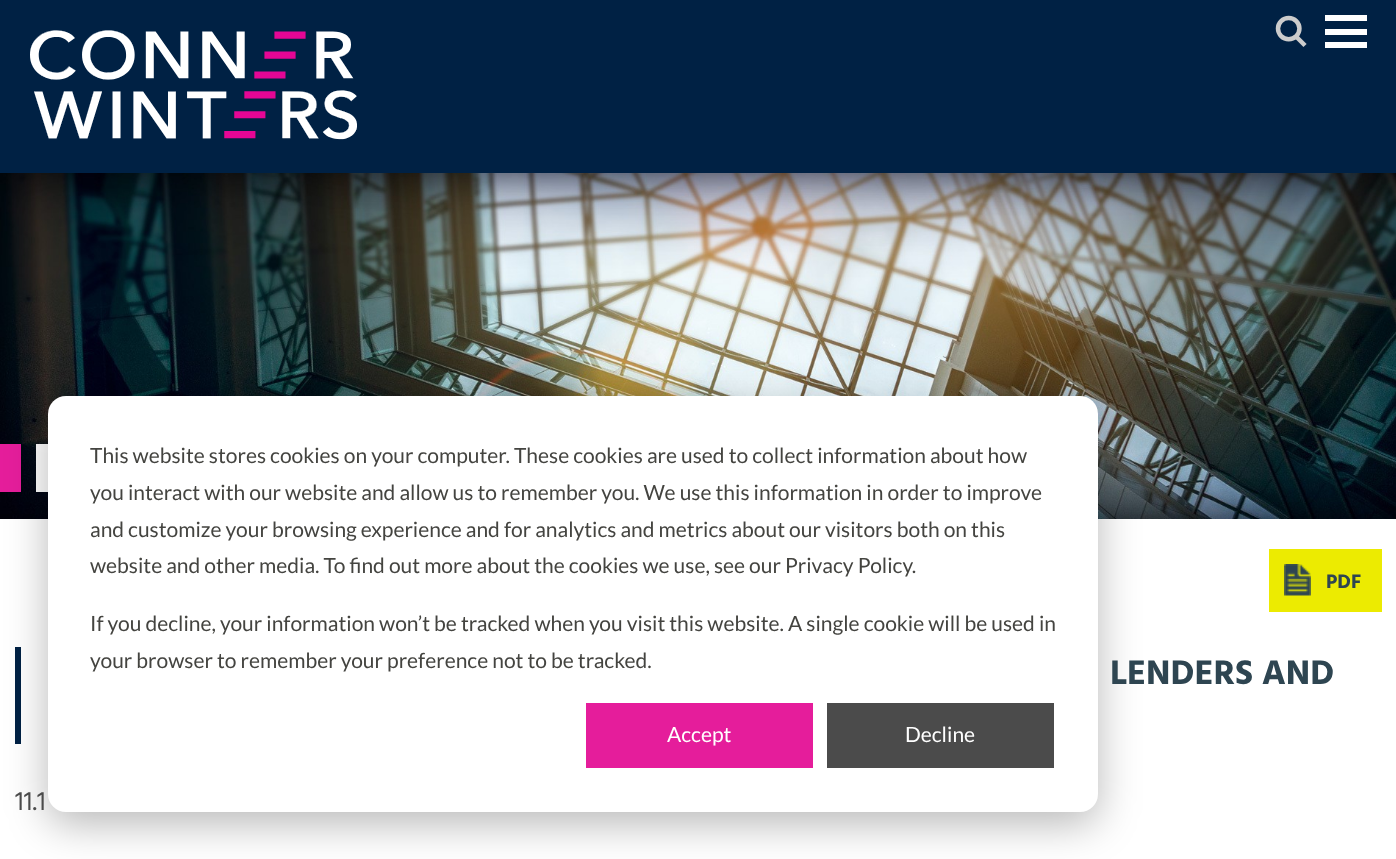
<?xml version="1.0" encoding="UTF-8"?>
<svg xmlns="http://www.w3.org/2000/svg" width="1396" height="859">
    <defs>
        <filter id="blur1" x="-50%" y="-200%" width="200%" height="500%"><feGaussianBlur stdDeviation="21"/></filter>
    </defs>
    <rect width="100%" height="100%" fill="#FFFFFF"/>
    <rect x="0" y="0" width="1396" height="173" fill="#002144"/>
    <image x="30" y="30" width="327" height="110" href="img_01.png"/>
    <image x="1275" y="15" width="32" height="32" href="img_02.png"/>
    <rect x="1325" y="15" width="42" height="6" fill="#FFFFFF"/>
    <rect x="1325" y="42" width="42" height="6" fill="#FFFFFF"/>
    <rect x="1325" y="29" width="42" height="6" fill="#FFFFFF"/>
    <image x="0" y="173" width="1396" height="346" href="img_03.png"/>
    <rect x="0" y="444" width="21" height="48" fill="#E51D9B"/>
    <rect x="36" y="444" width="12" height="48" fill="#FFFFFF"/>
    <rect x="15" y="647" width="6" height="97" fill="#002144"/>
    <rect x="48" y="408" width="1050" height="416" rx="18" fill="#000000" fill-opacity="0.28" filter="url(#blur1)"/>
    <rect x="48" y="396" width="1050" height="416" rx="18" fill="#FFFFFF"/>
    <text font-family="Lato" font-size="21" fill="#444440">
        <tspan x="90" y="463">This website stores cookies on your computer. These cookies are used to collect information about how</tspan>
        <tspan x="90" y="500">you interact with our website and allow us to remember you. We use this information in order to improve</tspan>
        <tspan x="90" y="537">and customize your browsing experience and for analytics and metrics about our visitors both on this</tspan>
        <tspan x="90" y="573">website and other media. To find out more about the cookies we use, see our Privacy Policy.</tspan>
    </text>
    <text font-family="Lato" font-size="21" fill="#444440">
        <tspan x="90" y="631">If you decline, your information won’t be tracked when you visit this website. A single cookie will be used in</tspan>
        <tspan x="90" y="668">your browser to remember your preference not to be tracked.</tspan>
    </text>
    <rect x="586" y="703" width="227" height="65" fill="#E51D9B"/>
    <text x="667" y="742" font-family="Lato" font-size="21" fill="#FFFFFF">Accept</text>
    <rect x="827" y="703" width="227" height="65" fill="#4B4B4B"/>
    <text x="905" y="742" font-family="Lato" font-size="21" fill="#FFFFFF">Decline</text>
    <rect x="1269" y="549" width="113" height="63" fill="#ECEB01"/>
    <image x="1284" y="564" width="27" height="32" href="img_04.png"/>
    <text x="1326" y="588" font-family="Hind" font-size="20" font-weight="700" fill="#2E4551">PDF</text>
    <text x="1110" y="684" font-family="Hind" font-size="35" font-weight="700" fill="#2E4551">LENDERS AND</text>
    <text x="15" y="810" font-family="Hind" font-size="27" fill="#4B4B4B">11.1</text>
</svg>
